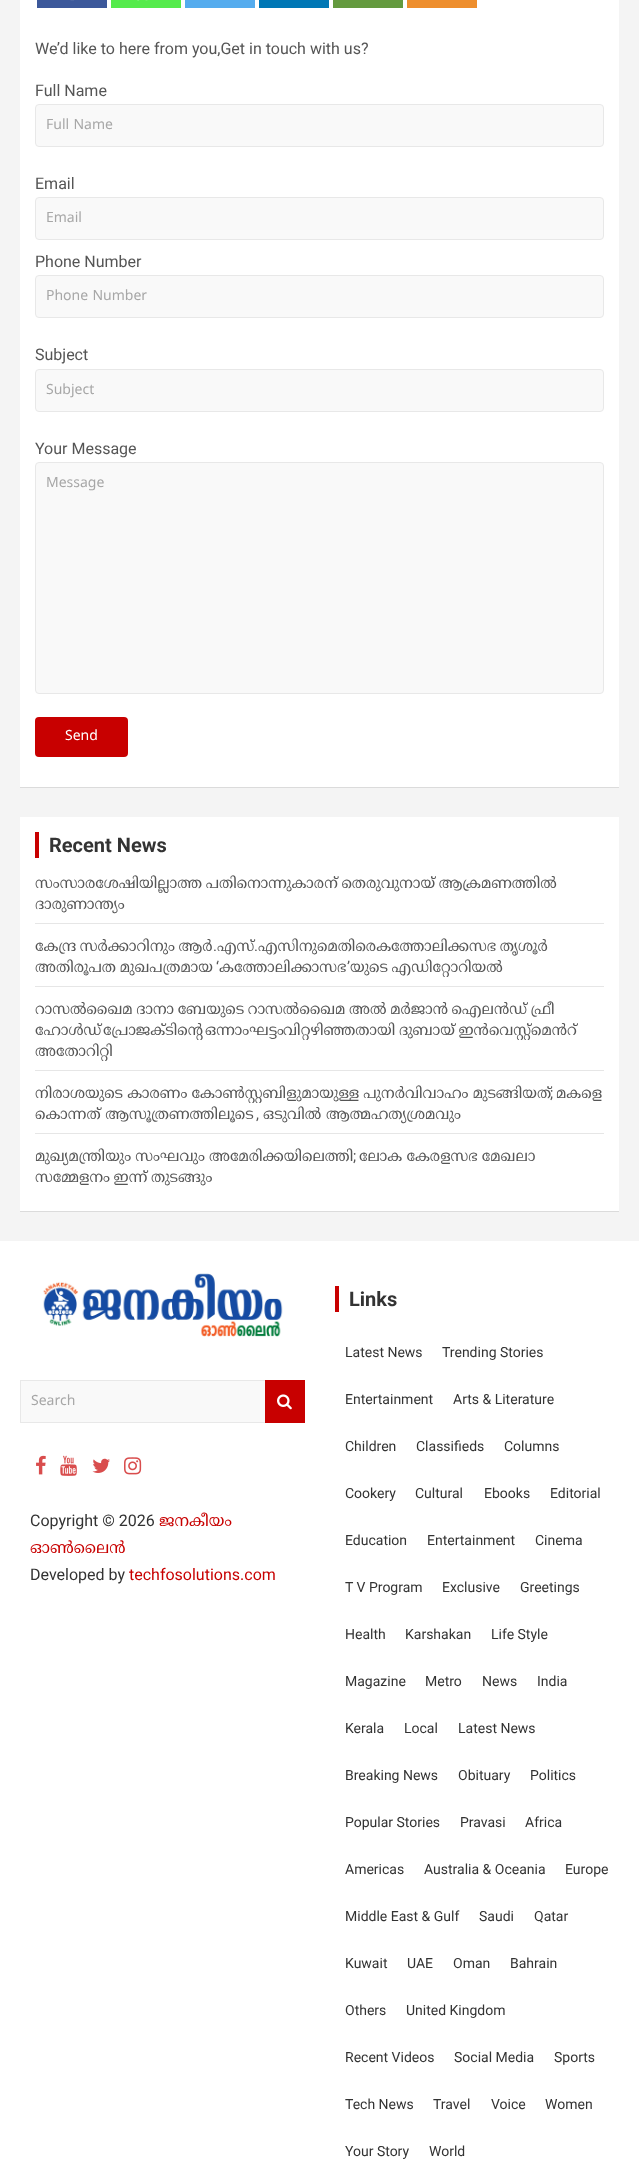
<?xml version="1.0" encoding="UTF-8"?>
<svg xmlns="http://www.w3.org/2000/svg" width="639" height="2160">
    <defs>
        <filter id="blur1" x="-50%" y="-200%" width="200%" height="500%"><feGaussianBlur stdDeviation="0.5"/></filter>
        <clipPath id="clip1"><rect x="35" y="873" width="569" height="323"/></clipPath>
    </defs>
    <rect width="100%" height="100%" fill="#F4F4F4"/>
    <rect x="20" y="-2" width="599" height="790" fill="#000000" fill-opacity="0.1" filter="url(#blur1)"/>
    <rect x="20" y="0" width="599" height="787" fill="#FFFFFF"/>
    <rect x="37" y="0" width="70" height="8" fill="#3C589A"/>
    <image x="70" y="0" width="4" height="1" href="img_01.png"/>
    <rect x="111" y="0" width="70" height="8" fill="#55EB4C"/>
    <image x="137" y="0" width="11" height="1" href="img_02.png"/>
    <rect x="185" y="0" width="70" height="8" fill="#55ACEE"/>
    <rect x="259" y="0" width="70" height="8" fill="#0077B5"/>
    <rect x="333" y="0" width="70" height="8" fill="#649A3F"/>
    <rect x="407" y="0" width="70" height="8" fill="#EE8E2D"/>
    <text x="35" y="54" font-family="Roboto" font-size="16" fill="#555555">We’d like to here from you,Get in touch with us?</text>
    <text x="35" y="96" font-family="Roboto" font-size="16" fill="#555555">Full Name</text>
    <rect x="35.5" y="104.5" width="568" height="42" rx="3.5" fill="#F9F9F9" stroke="#E8E8E8"/>
    <text x="46" y="129" font-family="Noto Sans Malayalam" font-size="14" fill="#A7A7A7">Full Name</text>
    <text x="35" y="189" font-family="Roboto" font-size="16" fill="#555555">Email</text>
    <rect x="35.5" y="197.5" width="568" height="42" rx="3.5" fill="#F9F9F9" stroke="#E8E8E8"/>
    <text x="46" y="222" font-family="Noto Sans Malayalam" font-size="14" fill="#A7A7A7">Email</text>
    <text x="35" y="267" font-family="Roboto" font-size="16" fill="#555555">Phone Number</text>
    <rect x="35.5" y="275.5" width="568" height="42" rx="3.5" fill="#F9F9F9" stroke="#E8E8E8"/>
    <text x="46" y="300" font-family="Noto Sans Malayalam" font-size="14" fill="#A7A7A7">Phone Number</text>
    <text x="35" y="360" font-family="Roboto" font-size="16" fill="#555555">Subject</text>
    <rect x="35.5" y="369.5" width="568" height="42" rx="3.5" fill="#F9F9F9" stroke="#E8E8E8"/>
    <text x="46" y="394" font-family="Noto Sans Malayalam" font-size="14" fill="#A7A7A7">Subject</text>
    <text x="35" y="454" font-family="Roboto" font-size="16" fill="#555555">Your Message</text>
    <rect x="35.5" y="462.5" width="568" height="231" rx="3.5" fill="#F9F9F9" stroke="#E8E8E8"/>
    <text x="46" y="487" font-family="Noto Sans Malayalam" font-size="14" fill="#A7A7A7">Message</text>
    <rect x="35" y="717" width="93" height="40" rx="4" fill="#C80000"/>
    <text x="65" y="740" font-family="Noto Sans Malayalam" font-size="14" fill="#FFFFFF">Send</text>
    <rect x="20" y="818" width="599" height="394" fill="#000000" fill-opacity="0.1" filter="url(#blur1)"/>
    <rect x="20" y="817" width="599" height="394" fill="#FFFFFF"/>
    <rect x="35" y="832" width="4" height="26" fill="#C80000"/>
    <text x="49" y="852" font-family="Roboto" font-size="20" font-weight="700" fill="#333333">Recent News</text>
    <rect x="35" y="923" width="569" height="1" fill="#E6E6E6"/>
    <text font-family="Noto Serif Malayalam" font-size="15" fill="#555555">
        <tspan x="35" y="888" word-spacing="-1">സംസാരശേഷിയില്ലാത്ത പതിനൊന്നുകാരന് തെരുവുനായ് ആക്രമണത്തില്‍</tspan>
        <tspan x="35" y="909">ദാരുണാന്ത്യം</tspan>
    </text>
    <rect x="35" y="986" width="569" height="1" fill="#E6E6E6"/>
    <text x="35" y="951" word-spacing="-1" font-family="Noto Serif Malayalam" font-size="15" fill="#555555">കേന്ദ്ര സർക്കാറിനും ആർ</text>
    <text x="213" y="951" font-family="Roboto" font-size="15" fill="#555555">.</text>
    <text x="217" y="951" font-family="Noto Serif Malayalam" font-size="15" fill="#555555">എസ്</text>
    <text x="254" y="951" font-family="Roboto" font-size="15" fill="#555555">.</text>
    <text x="258" y="951" word-spacing="-1" font-family="Noto Serif Malayalam" font-size="15" fill="#555555">എസിനുമെതിരെകത്തോലിക്കസഭ തൃശൂർ</text>
    <text x="35" y="972" word-spacing="-1" font-family="Noto Serif Malayalam" font-size="15" fill="#555555">അതിരൂപത മുഖപത്രമായ</text>
    <text x="216" y="972" font-family="Roboto" font-size="15" fill="#555555">‘</text>
    <text x="219" y="972" font-family="Noto Serif Malayalam" font-size="15" fill="#555555">കത്തോലിക്കാസഭ</text>
    <text x="347" y="972" font-family="Roboto" font-size="15" fill="#555555">’</text>
    <text x="350" y="972" word-spacing="-1" font-family="Noto Serif Malayalam" font-size="15" fill="#555555">യുടെ എഡിറ്റോറിയൽ</text>
    <rect x="35" y="1070" width="569" height="1" fill="#E6E6E6"/>
    <text font-family="Noto Serif Malayalam" font-size="15" fill="#555555">
        <tspan x="35" y="1014" word-spacing="-1">റാസൽഖൈമ ദാനാ ബേയുടെ റാസൽഖൈമ അൽ മർജാൻ ഐലൻഡ് ഫ്രീ</tspan>
        <tspan x="35" y="1035">ഹോൾഡ്</tspan>
    </text>
    <text x="103" y="1035" font-family="Noto Serif Malayalam" font-size="15" fill="#555555">പ്രോജക്ടിന്റെ</text>
    <text x="205" y="1035" font-family="Noto Serif Malayalam" font-size="15" fill="#555555">ഒന്നാംഘട്ടം</text>
    <text x="283" y="1035" word-spacing="-1" font-family="Noto Serif Malayalam" font-size="15" fill="#555555">വിറ്റഴിഞ്ഞതായി ദുബായ് ഇൻവെസ്റ്റ്‌മെൻറ്</text>
    <text x="35" y="1056" font-family="Noto Serif Malayalam" font-size="15" fill="#555555">അതോറിറ്റി</text>
    <rect x="35" y="1133" width="569" height="1" fill="#E6E6E6"/>
    <g clip-path="url(#clip1)">
        <text x="35" y="1098" word-spacing="-0.5" font-family="Noto Serif Malayalam" font-size="15" fill="#555555">നിരാശയുടെ കാരണം കോണ്‍സ്റ്റബിളുമായുള്ള പുനര്‍വിവാഹം മുടങ്ങിയത്</text>
    </g>
    <text x="550" y="1098" font-family="Roboto" font-size="15" fill="#555555">;</text>
    <text x="556" y="1098" font-family="Noto Serif Malayalam" font-size="15" fill="#555555">മകളെ</text>
    <text x="35" y="1119" font-family="Noto Serif Malayalam" font-size="15" fill="#555555">കൊന്നത് ആസൂത്രണത്തിലൂടെ</text>
    <text x="256" y="1119" font-family="Roboto" font-size="15" fill="#555555">,</text>
    <text x="263" y="1119" font-family="Noto Serif Malayalam" font-size="15" fill="#555555">ഒടുവിൽ ആത്മഹത്യശ്രമവും</text>
    <text x="35" y="1161" word-spacing="-0.5" font-family="Noto Serif Malayalam" font-size="15" fill="#555555">മുഖ്യമന്ത്രിയും സംഘവും അമേരിക്കയിലെത്തി</text>
    <text x="353" y="1161" font-family="Roboto" font-size="15" fill="#555555">;</text>
    <text x="359" y="1161" word-spacing="-0.5" font-family="Noto Serif Malayalam" font-size="15" fill="#555555">ലോക കേരളസഭ മേഖലാ</text>
    <text x="35" y="1182" word-spacing="-1" font-family="Noto Serif Malayalam" font-size="15" fill="#555555">സമ്മേളനം ഇന്ന് തുടങ്ങും</text>
    <rect x="0" y="1241" width="639" height="919" fill="#FFFFFF"/>
    <image x="43" y="1273" width="240" height="64" href="img_03.png"/>
    <rect x="21" y="1381" width="244" height="41" fill="#F9F9F9"/>
    <path d="M 20 1380 H 265 V 1381 H 21 Z" fill="#E8E8E8"/>
    <path d="M 265 1423 H 20 L 21 1422 H 265 Z" fill="#E8E8E8"/>
    <path d="M 20 1423 V 1380 L 21 1381 V 1422 Z" fill="#000000" fill-opacity="0.09"/>
    <text x="31" y="1405" font-family="Noto Sans Malayalam" font-size="14" fill="#A7A7A7">Search</text>
    <rect x="265" y="1380" width="40" height="43" fill="#C80000"/>
    <image x="277" y="1394" width="15" height="16" href="img_04.png"/>
    <image x="36" y="1455" width="10" height="20" href="img_05.png"/>
    <image x="60" y="1455" width="17" height="21" href="img_06.png"/>
    <image x="92" y="1458" width="18" height="15" href="img_07.png"/>
    <image x="124" y="1457" width="18" height="18" href="img_08.png"/>
    <text x="30" y="1526" font-family="Roboto" font-size="16" fill="#333333">Copyright © 2026</text>
    <text x="159" y="1526" font-family="Noto Serif Malayalam" font-size="16" fill="#C80000">ജനകീയം</text>
    <text x="30" y="1553" font-family="Noto Serif Malayalam" font-size="16" fill="#C80000">ഓൺ‌ലൈൻ</text>
    <text x="30" y="1580" font-family="Roboto" font-size="16" fill="#333333">Developed by</text>
    <text x="129" y="1580" font-family="Roboto" font-size="16" fill="#C80000">techfosolutions.com</text>
    <rect x="335" y="1286" width="4" height="26" fill="#C80000"/>
    <text x="349" y="1306" font-family="Roboto" font-size="20" font-weight="700" fill="#333333">Links</text>
    <text x="345" y="1357" font-family="Roboto" font-size="14" fill="#333333">Latest News</text>
    <text x="442" y="1357" font-family="Roboto" font-size="14" fill="#333333">Trending Stories</text>
    <text x="345" y="1404" font-family="Roboto" font-size="14" fill="#333333">Entertainment</text>
    <text x="453" y="1404" font-family="Roboto" font-size="14" fill="#333333">Arts &amp; Literature</text>
    <text x="345" y="1451" font-family="Roboto" font-size="14" fill="#333333">Children</text>
    <text x="416" y="1451" font-family="Roboto" font-size="14" fill="#333333">Classifieds</text>
    <text x="504" y="1451" font-family="Roboto" font-size="14" fill="#333333">Columns</text>
    <text x="345" y="1498" font-family="Roboto" font-size="14" fill="#333333">Cookery</text>
    <text x="415" y="1498" font-family="Roboto" font-size="14" fill="#333333">Cultural</text>
    <text x="484" y="1498" font-family="Roboto" font-size="14" fill="#333333">Ebooks</text>
    <text x="550" y="1498" font-family="Roboto" font-size="14" fill="#333333">Editorial</text>
    <text x="345" y="1545" font-family="Roboto" font-size="14" fill="#333333">Education</text>
    <text x="427" y="1545" font-family="Roboto" font-size="14" fill="#333333">Entertainment</text>
    <text x="535" y="1545" font-family="Roboto" font-size="14" fill="#333333">Cinema</text>
    <text x="345" y="1592" font-family="Roboto" font-size="14" fill="#333333">T V Program</text>
    <text x="442" y="1592" font-family="Roboto" font-size="14" fill="#333333">Exclusive</text>
    <text x="520" y="1592" font-family="Roboto" font-size="14" fill="#333333">Greetings</text>
    <text x="345" y="1639" font-family="Roboto" font-size="14" fill="#333333">Health</text>
    <text x="405" y="1639" font-family="Roboto" font-size="14" fill="#333333">Karshakan</text>
    <text x="491" y="1639" font-family="Roboto" font-size="14" fill="#333333">Life Style</text>
    <text x="345" y="1686" font-family="Roboto" font-size="14" fill="#333333">Magazine</text>
    <text x="425" y="1686" font-family="Roboto" font-size="14" fill="#333333">Metro</text>
    <text x="482" y="1686" font-family="Roboto" font-size="14" fill="#333333">News</text>
    <text x="537" y="1686" font-family="Roboto" font-size="14" fill="#333333">India</text>
    <text x="345" y="1733" font-family="Roboto" font-size="14" fill="#333333">Kerala</text>
    <text x="404" y="1733" font-family="Roboto" font-size="14" fill="#333333">Local</text>
    <text x="458" y="1733" font-family="Roboto" font-size="14" fill="#333333">Latest News</text>
    <text x="345" y="1780" font-family="Roboto" font-size="14" fill="#333333">Breaking News</text>
    <text x="458" y="1780" font-family="Roboto" font-size="14" fill="#333333">Obituary</text>
    <text x="530" y="1780" font-family="Roboto" font-size="14" fill="#333333">Politics</text>
    <text x="345" y="1827" font-family="Roboto" font-size="14" fill="#333333">Popular Stories</text>
    <text x="460" y="1827" font-family="Roboto" font-size="14" fill="#333333">Pravasi</text>
    <text x="525" y="1827" font-family="Roboto" font-size="14" fill="#333333">Africa</text>
    <text x="345" y="1874" font-family="Roboto" font-size="14" fill="#333333">Americas</text>
    <text x="424" y="1874" font-family="Roboto" font-size="14" fill="#333333">Australia &amp; Oceania</text>
    <text x="565" y="1874" font-family="Roboto" font-size="14" fill="#333333">Europe</text>
    <text x="345" y="1921" font-family="Roboto" font-size="14" fill="#333333">Middle East &amp; Gulf</text>
    <text x="479" y="1921" font-family="Roboto" font-size="14" fill="#333333">Saudi</text>
    <text x="534" y="1921" font-family="Roboto" font-size="14" fill="#333333">Qatar</text>
    <text x="345" y="1968" font-family="Roboto" font-size="14" fill="#333333">Kuwait</text>
    <text x="407" y="1968" font-family="Roboto" font-size="14" fill="#333333">UAE</text>
    <text x="453" y="1968" font-family="Roboto" font-size="14" fill="#333333">Oman</text>
    <text x="510" y="1968" font-family="Roboto" font-size="14" fill="#333333">Bahrain</text>
    <text x="345" y="2015" font-family="Roboto" font-size="14" fill="#333333">Others</text>
    <text x="406" y="2015" font-family="Roboto" font-size="14" fill="#333333">United Kingdom</text>
    <text x="345" y="2062" font-family="Roboto" font-size="14" fill="#333333">Recent Videos</text>
    <text x="454" y="2062" font-family="Roboto" font-size="14" fill="#333333">Social Media</text>
    <text x="554" y="2062" font-family="Roboto" font-size="14" fill="#333333">Sports</text>
    <text x="345" y="2109" font-family="Roboto" font-size="14" fill="#333333">Tech News</text>
    <text x="433" y="2109" font-family="Roboto" font-size="14" fill="#333333">Travel</text>
    <text x="491" y="2109" font-family="Roboto" font-size="14" fill="#333333">Voice</text>
    <text x="545" y="2109" font-family="Roboto" font-size="14" fill="#333333">Women</text>
    <text x="345" y="2156" font-family="Roboto" font-size="14" fill="#333333">Your Story</text>
    <text x="429" y="2156" font-family="Roboto" font-size="14" fill="#333333">World</text>
</svg>
